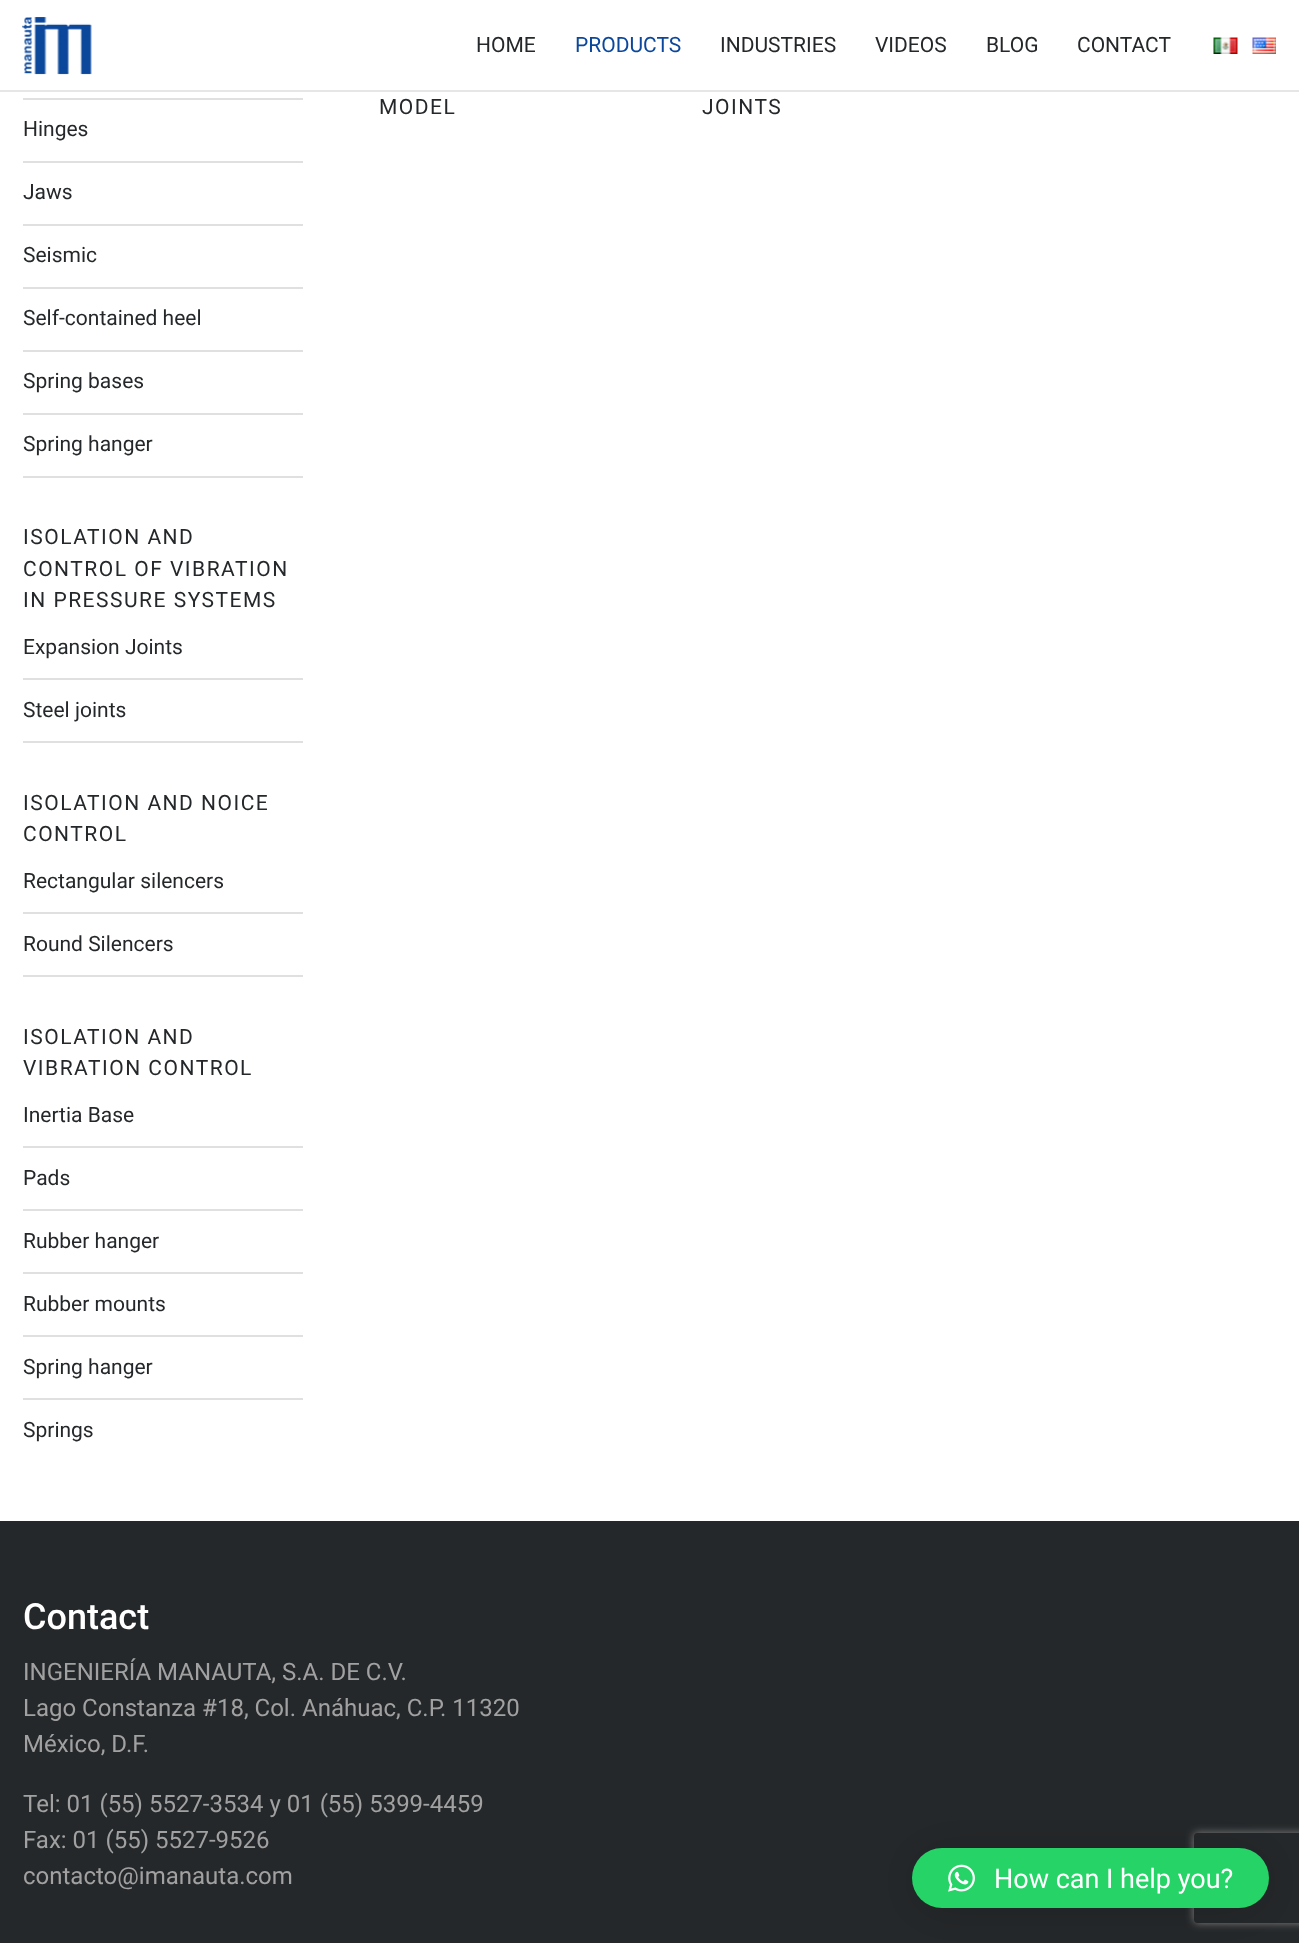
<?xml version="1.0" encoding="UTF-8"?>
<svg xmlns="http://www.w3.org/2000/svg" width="1299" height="1943">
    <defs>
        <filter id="blur1" x="-50%" y="-200%" width="200%" height="500%"><feGaussianBlur stdDeviation="24"/></filter>
        <clipPath id="clip1"><path d="M 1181 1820 H 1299 V 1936 H 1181 Z M 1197 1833 H 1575 C 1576.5 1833 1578 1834.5 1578 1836 V 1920 C 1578 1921.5 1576.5 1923 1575 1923 H 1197 C 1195.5 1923 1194 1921.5 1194 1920 V 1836 C 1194 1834.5 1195.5 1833 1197 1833 Z" clip-rule="evenodd"/></clipPath>
        <filter id="blur2" x="-50%" y="-200%" width="200%" height="500%"><feGaussianBlur stdDeviation="4"/></filter>
    </defs>
    <rect width="100%" height="100%" fill="#FFFFFF"/>
    <rect x="0" y="90" width="1299" height="2" fill="#E6E6E6"/>
    <image x="22" y="17" width="70" height="58" href="img_01.png"/>
    <text x="476" y="52" font-family="Roboto" font-size="21" fill="#25282A">HOME</text>
    <text x="575" y="52" font-family="Roboto" font-size="21" fill="#0B479B">PRODUCTS</text>
    <text x="720" y="52" font-family="Roboto" font-size="21" fill="#25282A">INDUSTRIES</text>
    <text x="875" y="52" font-family="Roboto" font-size="21" fill="#25282A">VIDEOS</text>
    <text x="986" y="52" font-family="Roboto" font-size="21" fill="#25282A">BLOG</text>
    <text x="1077" y="52" font-family="Roboto" font-size="21" fill="#25282A">CONTACT</text>
    <image x="1213" y="37" width="25" height="17" href="img_02.png"/>
    <image x="1252" y="37" width="24" height="17" href="img_03.png"/>
    <text x="379" y="114" font-family="Roboto" font-size="21" letter-spacing="1.5" fill="#25282A">MODEL</text>
    <text x="702" y="114" font-family="Roboto" font-size="21" letter-spacing="1.5" fill="#25282A">JOINTS</text>
    <rect x="23" y="476" width="280" height="2" fill="#E0E0E0"/>
    <rect x="23" y="98" width="280" height="2" fill="#E0E0E0"/>
    <rect x="23" y="161" width="280" height="2" fill="#E0E0E0"/>
    <text x="23" y="136" font-family="Roboto" font-size="21" fill="#25282A">Hinges</text>
    <rect x="23" y="224" width="280" height="2" fill="#E0E0E0"/>
    <text x="23" y="199" font-family="Roboto" font-size="21" fill="#25282A">Jaws</text>
    <rect x="23" y="287" width="280" height="2" fill="#E0E0E0"/>
    <text x="23" y="262" font-family="Roboto" font-size="21" fill="#25282A">Seismic</text>
    <rect x="23" y="350" width="280" height="2" fill="#E0E0E0"/>
    <text x="23" y="325" font-family="Roboto" font-size="21" fill="#25282A">Self-contained heel</text>
    <rect x="23" y="413" width="280" height="2" fill="#E0E0E0"/>
    <text x="23" y="388" font-family="Roboto" font-size="21" fill="#25282A">Spring bases</text>
    <text x="23" y="451" font-family="Roboto" font-size="21" fill="#25282A">Spring hanger</text>
    <rect x="23" y="741" width="280" height="2" fill="#E0E0E0"/>
    <text font-family="Roboto" font-size="21" letter-spacing="1.5" fill="#25282A">
        <tspan x="23" y="544">ISOLATION AND</tspan>
        <tspan x="23" y="576">CONTROL OF VIBRATION</tspan>
        <tspan x="23" y="607">IN PRESSURE SYSTEMS</tspan>
    </text>
    <rect x="23" y="678" width="280" height="2" fill="#E0E0E0"/>
    <text x="23" y="654" font-family="Roboto" font-size="21" fill="#25282A">Expansion Joints</text>
    <text x="23" y="717" font-family="Roboto" font-size="21" fill="#25282A">Steel joints</text>
    <rect x="23" y="975" width="280" height="2" fill="#E0E0E0"/>
    <text font-family="Roboto" font-size="21" letter-spacing="1.5" fill="#25282A">
        <tspan x="23" y="810">ISOLATION AND NOICE</tspan>
        <tspan x="23" y="841">CONTROL</tspan>
    </text>
    <rect x="23" y="912" width="280" height="2" fill="#E0E0E0"/>
    <text x="23" y="888" font-family="Roboto" font-size="21" fill="#25282A">Rectangular silencers</text>
    <text x="23" y="951" font-family="Roboto" font-size="21" fill="#25282A">Round Silencers</text>
    <text font-family="Roboto" font-size="21" letter-spacing="1.5" fill="#25282A">
        <tspan x="23" y="1044">ISOLATION AND</tspan>
        <tspan x="23" y="1075">VIBRATION CONTROL</tspan>
    </text>
    <rect x="23" y="1146" width="280" height="2" fill="#E0E0E0"/>
    <text x="23" y="1122" font-family="Roboto" font-size="21" fill="#25282A">Inertia Base</text>
    <rect x="23" y="1209" width="280" height="2" fill="#E0E0E0"/>
    <text x="23" y="1185" font-family="Roboto" font-size="21" fill="#25282A">Pads</text>
    <rect x="23" y="1272" width="280" height="2" fill="#E0E0E0"/>
    <text x="23" y="1248" font-family="Roboto" font-size="21" fill="#25282A">Rubber hanger</text>
    <rect x="23" y="1335" width="280" height="2" fill="#E0E0E0"/>
    <text x="23" y="1311" font-family="Roboto" font-size="21" fill="#25282A">Rubber mounts</text>
    <rect x="23" y="1398" width="280" height="2" fill="#E0E0E0"/>
    <text x="23" y="1374" font-family="Roboto" font-size="21" fill="#25282A">Spring hanger</text>
    <text x="23" y="1437" font-family="Roboto" font-size="21" fill="#25282A">Springs</text>
    <rect x="0" y="1521" width="1299" height="422" fill="#25282A"/>
    <text x="23" y="1629" font-family="Roboto" font-size="36" font-weight="500" fill="#FFFFFF">Contact</text>
    <text font-family="Roboto" font-size="24" fill="#A1A1A1">
        <tspan x="23" y="1680">INGENIERÍA MANAUTA, S.A. DE C.V.</tspan>
        <tspan x="23" y="1716">Lago Constanza #18, Col. Anáhuac, C.P. 11320</tspan>
        <tspan x="23" y="1752">México, D.F.</tspan>
    </text>
    <text font-family="Roboto" font-size="24" fill="#A1A1A1">
        <tspan x="23" y="1812">Tel: 01 (55) 5527-3534 y 01 (55) 5399-4459</tspan>
        <tspan x="23" y="1848">Fax: 01 (55) 5527-9526</tspan>
        <tspan x="23" y="1884">contacto@imanauta.com</tspan>
    </text>
    <rect x="912" y="1851" width="357" height="60" rx="30" fill="#000000" fill-opacity="0.16" filter="url(#blur1)"/>
    <g clip-path="url(#clip1)">
        <rect x="1194" y="1833" width="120" height="90" rx="3" fill="#808080" filter="url(#blur2)"/>
    </g>
    <rect x="912" y="1848" width="357" height="60" rx="30" fill="#25D366"/>
    <image x="948" y="1864" width="27" height="28" href="img_04.png"/>
    <text x="994" y="1888" font-family="Roboto" font-size="27" fill="#FFFFFF">How can I help you?</text>
</svg>
